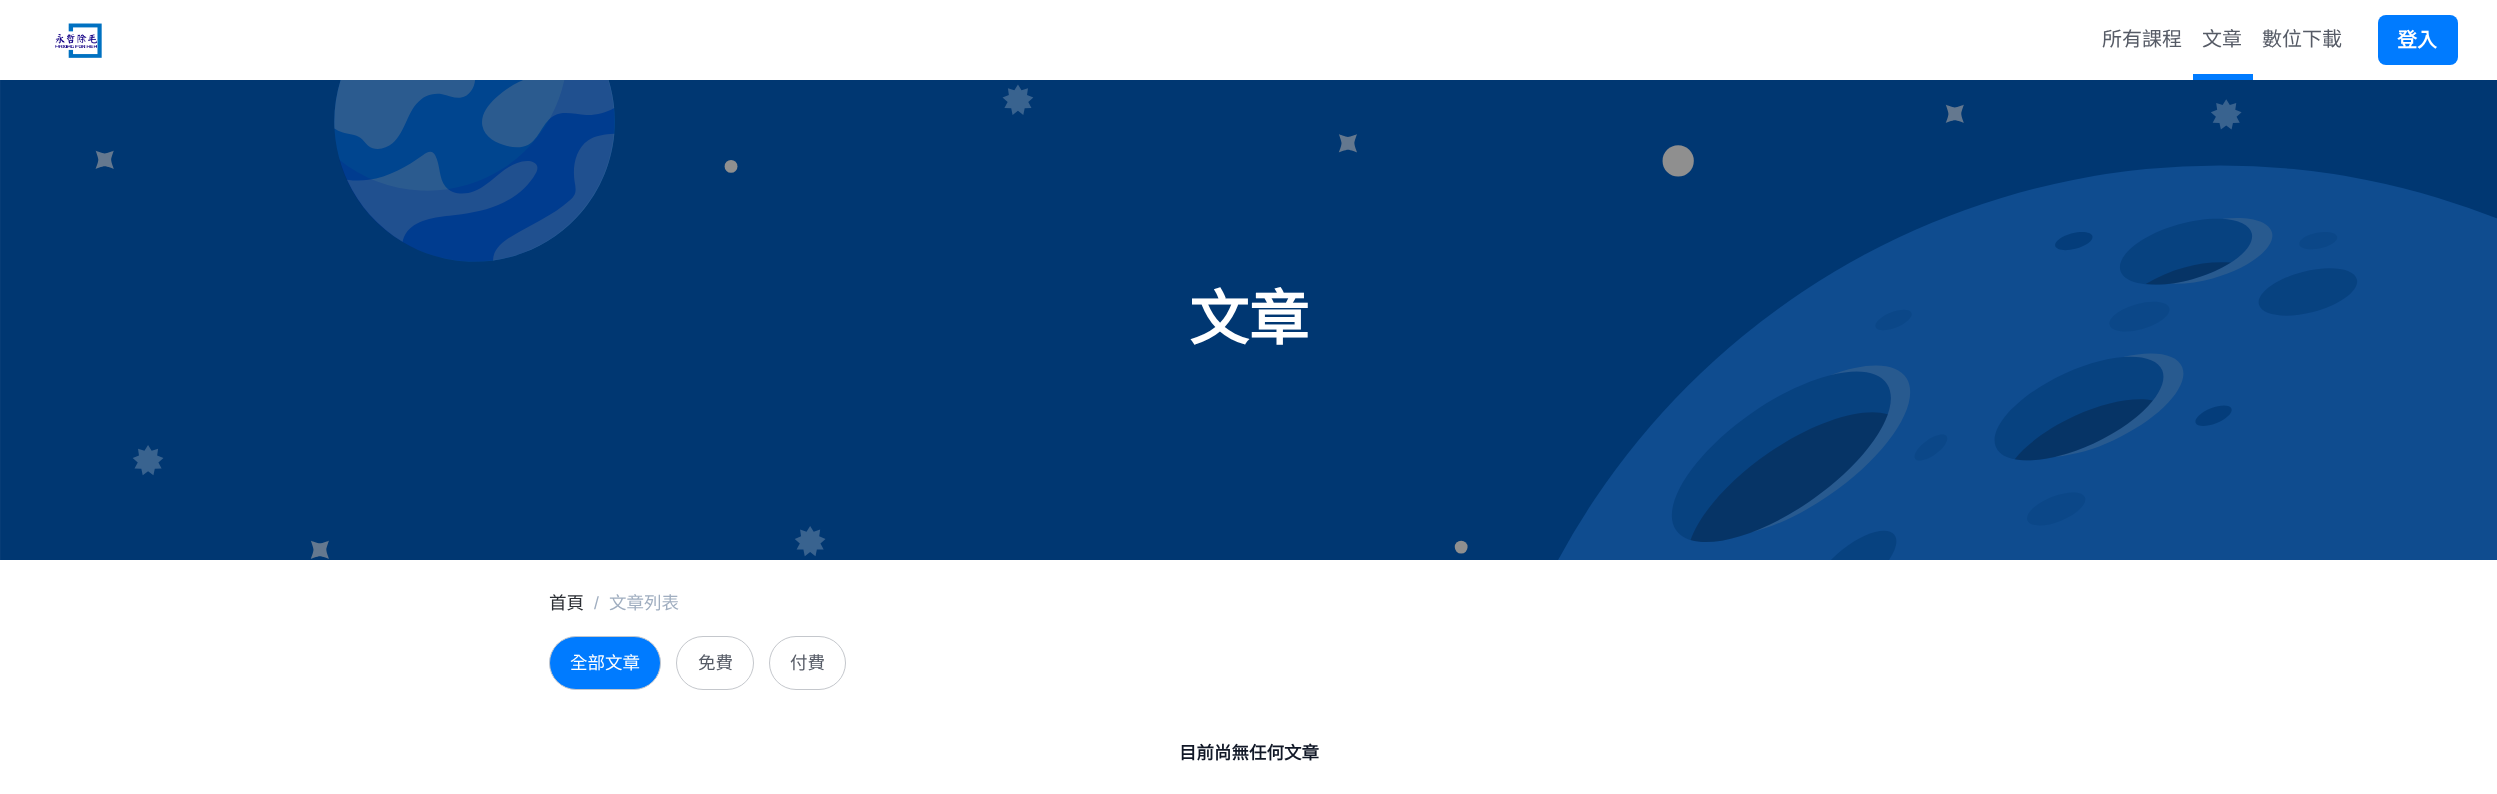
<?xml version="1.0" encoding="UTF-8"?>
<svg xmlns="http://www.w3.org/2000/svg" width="2497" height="794">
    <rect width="100%" height="100%" fill="#FFFFFF"/>
    <image x="55" y="23" width="47" height="35" href="img_01.png"/>
    <text x="2102" y="46" font-family="Noto Sans CJK TC" font-size="20" fill="#565B66">所有課程</text>
    <rect x="2193" y="74" width="60" height="6" fill="#007BFF"/>
    <text x="2202" y="46" font-family="Noto Sans CJK TC" font-size="20" fill="#565B66">文章</text>
    <text x="2262" y="46" font-family="Noto Sans CJK TC" font-size="20" fill="#565B66">數位下載</text>
    <rect x="2378" y="15" width="80" height="50" rx="8" fill="#007BFF"/>
    <text x="2397" y="47" font-family="Noto Sans CJK TC" font-size="20" font-weight="700" fill="#FFFFFF">登入</text>
    <image x="0" y="80" width="2497" height="480" href="img_02.png"/>
    <text x="1189" y="340" font-family="Noto Sans CJK TC" font-size="60" font-weight="700" fill="#FFFFFF">文章</text>
    <text x="549" y="609" font-family="Noto Sans CJK TC" font-size="17.5" fill="#2B2E33">首頁</text>
    <text x="594" y="609" font-family="Liberation Sans" font-size="17.5" fill="#A0AEC0">/</text>
    <text x="609" y="609" font-family="Noto Sans CJK TC" font-size="17.5" fill="#A0AEC0">文章列表</text>
    <rect x="549.5" y="636.5" width="111" height="53" rx="26.5" fill="#007BFF" stroke="#C4C7CC"/>
    <text x="570" y="669" font-family="Noto Sans CJK TC" font-size="17.5" fill="#FFFFFF">全部文章</text>
    <rect x="676.5" y="636.5" width="77" height="53" rx="26.5" fill="none" stroke="#C4C7CC"/>
    <text x="698" y="669" font-family="Noto Sans CJK TC" font-size="17.5" fill="#565B66">免費</text>
    <rect x="769.5" y="636.5" width="76" height="53" rx="26.5" fill="none" stroke="#C4C7CC"/>
    <text x="790" y="669" font-family="Noto Sans CJK TC" font-size="17.5" fill="#565B66">付費</text>
    <text x="1179" y="759" font-family="Noto Sans CJK TC" font-size="17.5" font-weight="700" fill="#111827">目前尚無任何文章</text>
</svg>
